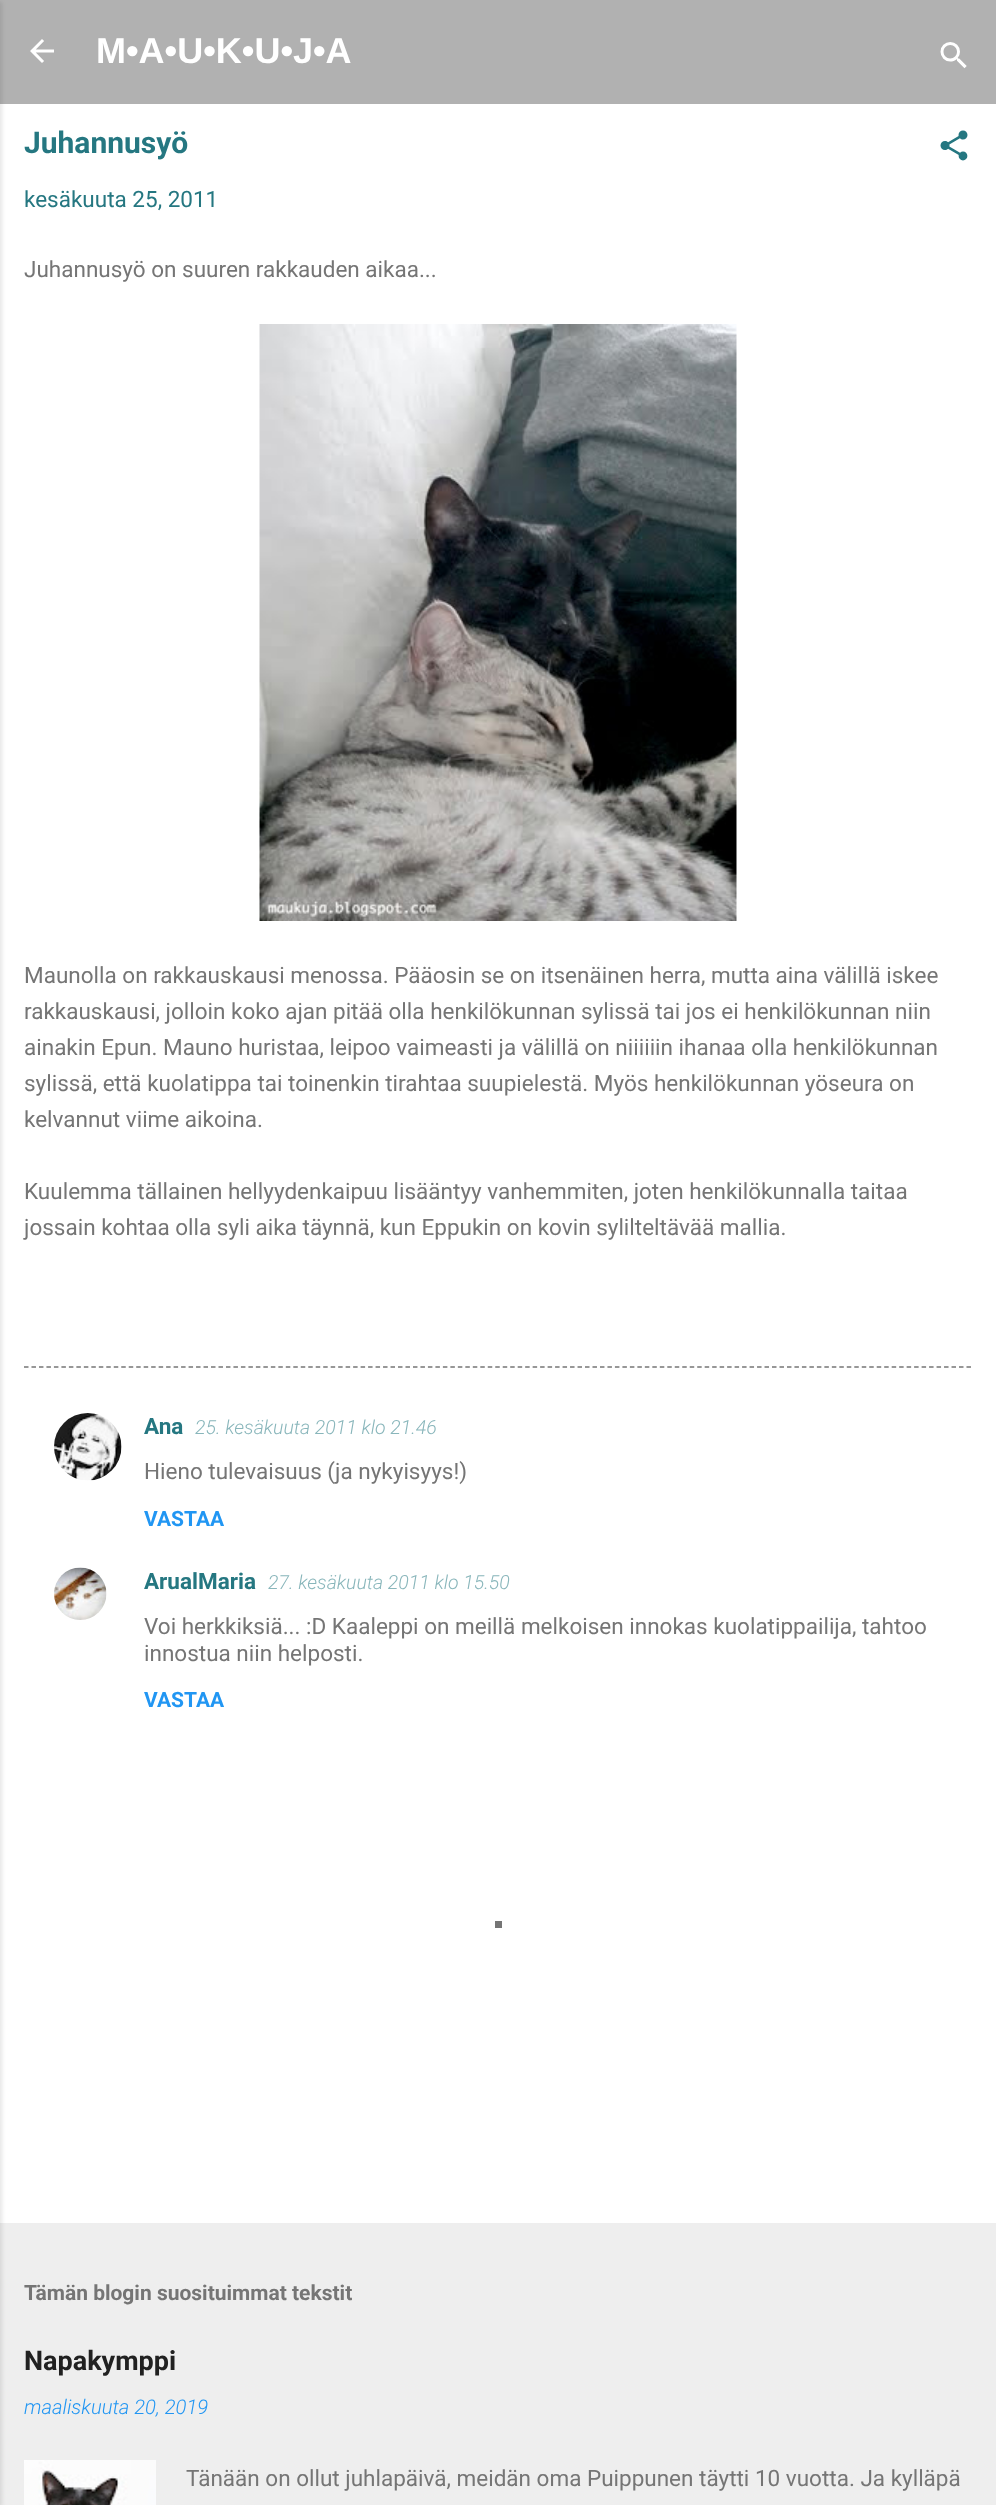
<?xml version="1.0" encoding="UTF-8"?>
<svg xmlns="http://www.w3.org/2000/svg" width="996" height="2505">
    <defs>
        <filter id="blur1" x="-50%" y="-200%" width="200%" height="500%"><feGaussianBlur stdDeviation="2"/></filter>
    </defs>
    <rect width="100%" height="100%" fill="#EEEEEE"/>
    <rect x="0" y="0" width="996" height="104" fill="#B1B1B1"/>
    <rect x="0" y="104" width="996" height="2119" fill="#FFFFFF"/>
    <rect x="-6" y="2" width="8" height="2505" fill="#000000" fill-opacity="0.1" filter="url(#blur1)"/>
    <image x="30" y="39" width="24" height="24" href="img_01.png"/>
    <text x="96" y="63" font-family="Liberation Sans" font-size="36" font-weight="700" fill="#FFFFFF">M•A•U•K•U•J•A</text>
    <image x="940" y="42" width="27" height="27" href="img_02.png"/>
    <text x="24" y="153" font-family="Roboto" font-size="30" font-weight="700" fill="#257781">Juhannusyö</text>
    <image x="940" y="130" width="28" height="31" href="img_03.png"/>
    <text x="24" y="207" font-family="Roboto" font-size="22.5" fill="#257781">kesäkuuta 25, 2011</text>
    <text x="24" y="277" font-family="Roboto" font-size="22.5" fill="#757575">Juhannusyö on suuren rakkauden aikaa...</text>
    <image x="259" y="324" width="478" height="597" href="img_04.png"/>
    <text font-family="Roboto" font-size="22.5" fill="#757575">
        <tspan x="24" y="983">Maunolla on rakkauskausi menossa. Pääosin se on itsenäinen herra, mutta aina välillä iskee</tspan>
        <tspan x="24" y="1019">rakkauskausi, jolloin koko ajan pitää olla henkilökunnan sylissä tai jos ei henkilökunnan niin</tspan>
        <tspan x="24" y="1055">ainakin Epun. Mauno huristaa, leipoo vaimeasti ja välillä on niiiiiin ihanaa olla henkilökunnan</tspan>
        <tspan x="24" y="1091">sylissä, että kuolatippa tai toinenkin tirahtaa suupielestä. Myös henkilökunnan yöseura on</tspan>
        <tspan x="24" y="1127">kelvannut viime aikoina.</tspan>
    </text>
    <text font-family="Roboto" font-size="22.5" fill="#757575">
        <tspan x="24" y="1199">Kuulemma tällainen hellyydenkaipuu lisääntyy vanhemmiten, joten henkilökunnalla taitaa</tspan>
        <tspan x="24" y="1235">jossain kohtaa olla syli aika täynnä, kun Eppukin on kovin sylilteltävää mallia.</tspan>
    </text>
    <path d="M 24 1367 H 972" fill="none" stroke="#757575" stroke-width="1.5" stroke-dasharray="4.5 2.98"/>
    <image x="54" y="1413" width="68" height="68" href="img_05.png"/>
    <text x="144" y="1434" font-family="Roboto" font-size="22.5" font-weight="700" fill="#257781">Ana</text>
    <text x="195" y="1434" font-family="Roboto" font-size="19.5" font-weight="300" font-style="italic" fill="#89B6BB">25. kesäkuuta 2011 klo 21.46</text>
    <text x="144" y="1479" font-family="Roboto" font-size="22.5" fill="#757575">Hieno tulevaisuus (ja nykyisyys!)</text>
    <text x="144" y="1526" font-family="Roboto" font-size="21" font-weight="700" fill="#2196F3">VASTAA</text>
    <image x="54" y="1567" width="53" height="53" href="img_06.png"/>
    <text x="144" y="1589" font-family="Roboto" font-size="22.5" font-weight="700" fill="#257781">ArualMaria</text>
    <text x="268" y="1589" font-family="Roboto" font-size="19.5" font-weight="300" font-style="italic" fill="#89B6BB">27. kesäkuuta 2011 klo 15.50</text>
    <text font-family="Roboto" font-size="22.5" fill="#757575">
        <tspan x="144" y="1634">Voi herkkiksiä... :D Kaaleppi on meillä melkoisen innokas kuolatippailija, tahtoo</tspan>
        <tspan x="144" y="1661">innostua niin helposti.</tspan>
    </text>
    <text x="144" y="1707" font-family="Roboto" font-size="21" font-weight="700" fill="#2196F3">VASTAA</text>
    <text x="24" y="2300" font-family="Roboto" font-size="21" font-weight="700" fill="#757575">Tämän blogin suosituimmat tekstit</text>
    <text x="24" y="2370" font-family="Roboto" font-size="27" font-weight="700" fill="#212121">Napakymppi</text>
    <text x="24" y="2414" font-family="Roboto" font-size="20.25" font-weight="300" font-style="italic" fill="#2196F3">maaliskuuta 20, 2019</text>
    <image x="24" y="2460" width="132" height="45" href="img_07.png"/>
    <text x="186" y="2486" font-family="Roboto" font-size="22.5" fill="#757575">Tänään on ollut juhlapäivä, meidän oma Puippunen täytti 10 vuotta. Ja kylläpä</text>
    <rect x="495" y="1921" width="7" height="7" fill="#757575"/>
</svg>
